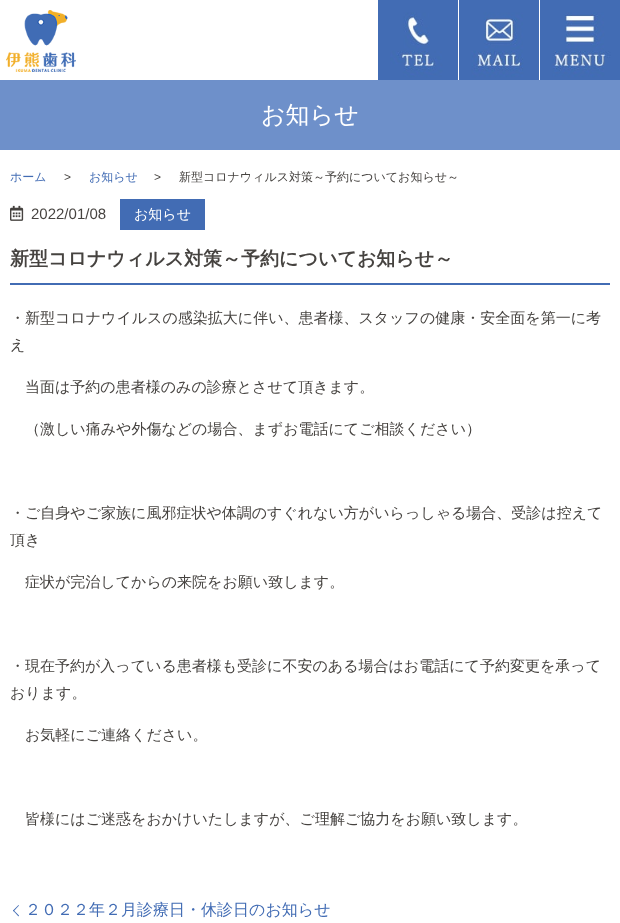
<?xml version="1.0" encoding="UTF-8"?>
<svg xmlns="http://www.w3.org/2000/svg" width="620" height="923">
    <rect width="100%" height="100%" fill="#FFFFFF"/>
    <image x="6" y="10" width="70" height="62" href="img_01.png"/>
    <image x="378" y="0" width="80" height="80" href="img_02.png"/>
    <image x="459" y="0" width="80" height="80" href="img_03.png"/>
    <image x="540" y="0" width="80" height="80" href="img_04.png"/>
    <rect x="0" y="80" width="620" height="70" fill="#6E90CA"/>
    <text x="261" y="123" font-family="WenQuanYi Zen Hei" font-size="24" font-weight="500" fill="#FFFFFF">お知らせ</text>
    <text x="10" y="181" font-family="WenQuanYi Zen Hei" font-size="12" font-weight="500" fill="#426CB4">ホーム</text>
    <text x="64" y="181" font-family="Liberation Sans" font-size="12" fill="#464340">&gt;</text>
    <text x="89" y="181" font-family="WenQuanYi Zen Hei" font-size="12" font-weight="500" fill="#426CB4">お知らせ</text>
    <text x="154" y="181" font-family="Liberation Sans" font-size="12" fill="#464340">&gt;</text>
    <text x="179" y="181" font-family="WenQuanYi Zen Hei" font-size="12" font-weight="500" fill="#464340">新型コロナウィルス対策～予約についてお知らせ～</text>
    <image x="10" y="205" width="14" height="16" href="img_05.png"/>
    <text x="31" y="219" font-family="Liberation Sans" font-size="15" fill="#464340">2022/01/08</text>
    <rect x="120" y="199" width="85" height="31" fill="#426CB4"/>
    <text x="134" y="219" font-family="WenQuanYi Zen Hei" font-size="14" font-weight="500" fill="#FFFFFF">お知らせ</text>
    <rect x="10" y="283" width="600" height="2" fill="#426CB4"/>
    <text x="10" y="265" font-family="WenQuanYi Zen Hei" font-size="19" font-weight="700" fill="#464340">新型コロナウィルス対策～予約についてお知らせ～</text>
    <text font-family="WenQuanYi Zen Hei" font-size="15" font-weight="500" fill="#464340">
        <tspan x="10" y="323">・新型コロナウイルスの感染拡大に伴い、患者様、スタッフの健康・安全面を第一に考</tspan>
        <tspan x="10" y="350">え</tspan>
    </text>
    <text x="25" y="392" font-family="WenQuanYi Zen Hei" font-size="15" font-weight="500" fill="#464340">当面は予約の患者様のみの診療とさせて頂きます。</text>
    <text x="25" y="434" font-family="WenQuanYi Zen Hei" font-size="15" font-weight="500" fill="#464340">（激しい痛みや外傷などの場合、まずお電話にてご相談ください）</text>
    <text font-family="WenQuanYi Zen Hei" font-size="15" font-weight="500" fill="#464340">
        <tspan x="10" y="518">・ご自身やご家族に風邪症状や体調のすぐれない方がいらっしゃる場合、受診は控えて</tspan>
        <tspan x="10" y="545">頂き</tspan>
    </text>
    <text x="25" y="587" font-family="WenQuanYi Zen Hei" font-size="15" font-weight="500" fill="#464340">症状が完治してからの来院をお願い致します。</text>
    <text font-family="WenQuanYi Zen Hei" font-size="15" font-weight="500" fill="#464340">
        <tspan x="10" y="671">・現在予約が入っている患者様も受診に不安のある場合はお電話にて予約変更を承って</tspan>
        <tspan x="10" y="698">おります。</tspan>
    </text>
    <text x="25" y="740" font-family="WenQuanYi Zen Hei" font-size="15" font-weight="500" fill="#464340">お気軽にご連絡ください。</text>
    <text x="25" y="824" font-family="WenQuanYi Zen Hei" font-size="15" font-weight="500" fill="#464340">皆様にはご迷惑をおかけいたしますが、ご理解ご協力をお願い致します。</text>
    <path d="M 13 910.5 L 18.5 905 L 19 905.5 L 13.5 911.5 Z" fill="#426CB4"/>
    <text x="25" y="915" font-family="WenQuanYi Zen Hei" font-size="16" font-weight="500" fill="#426CB4">２０２２年２月診療日・休診日のお知らせ</text>
    <path d="M 18.5 916.5 L 13 910.5 L 13.5 910 L 19 915.5 Z" fill="#426CB4"/>
</svg>
